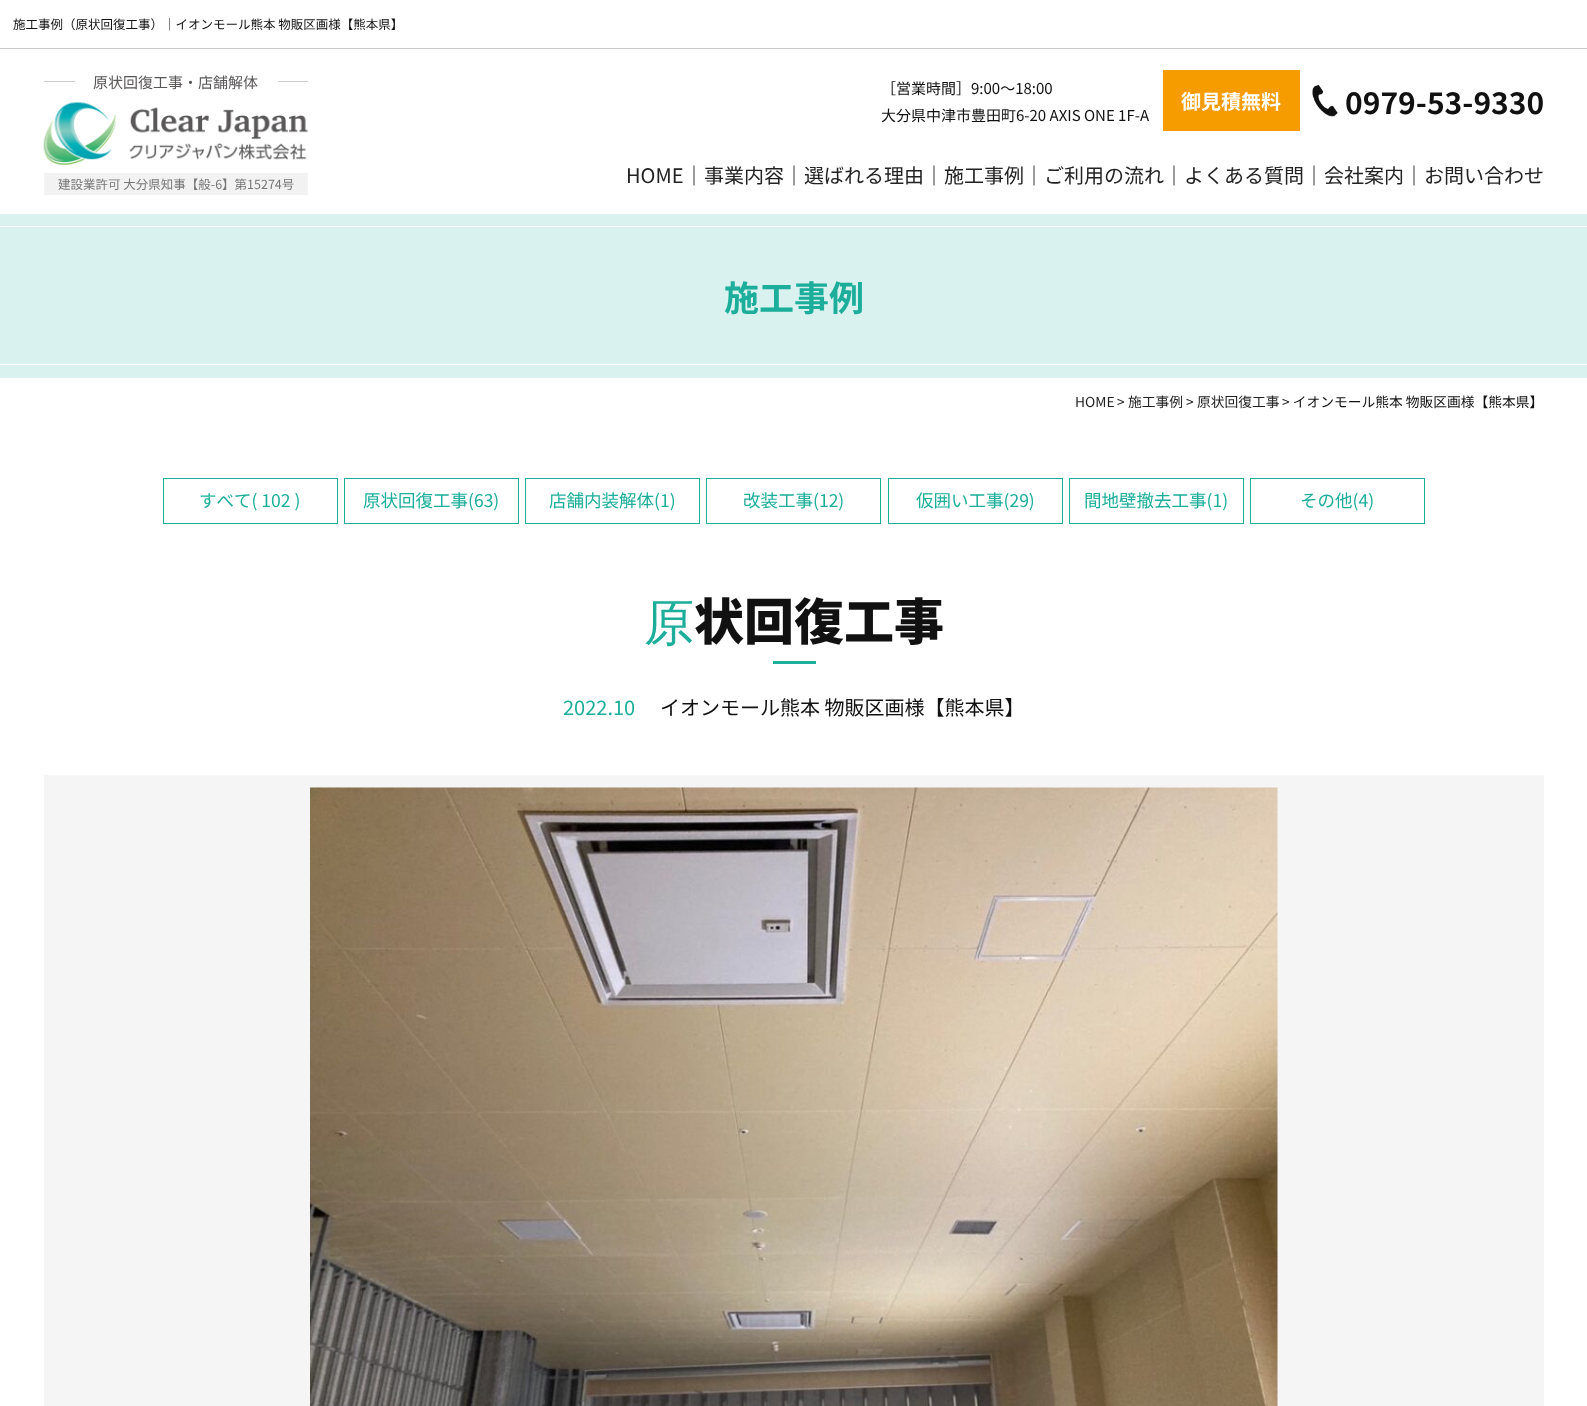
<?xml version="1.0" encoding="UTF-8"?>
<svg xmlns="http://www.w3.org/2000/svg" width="1587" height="1406">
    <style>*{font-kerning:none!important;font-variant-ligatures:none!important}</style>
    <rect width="100%" height="100%" fill="#FFFFFF"/>
    <rect x="0" y="48" width="1587" height="1" fill="#CCCCCC"/>
    <text x="13" y="29" font-family="Noto Sans JP" font-size="12.5" fill="#111111">施工事例（原状回復工事）｜イオンモール熊本 物販区画様【熊本県】</text>
    <rect x="44" y="81" width="31" height="1" fill="#CCCCCC"/>
    <text x="93" y="88" font-family="Noto Sans JP" font-size="15" fill="#595656">原状回復工事・店舗解体</text>
    <rect x="278" y="81" width="30" height="1" fill="#CCCCCC"/>
    <image x="43" y="102" width="265" height="63" href="img_01.png"/>
    <rect x="44" y="173" width="264" height="22" fill="#F2F2F2"/>
    <text x="58" y="189" font-family="Noto Sans JP" font-size="12.5" fill="#777777">建設業許可 大分県知事【般-6】第15274号</text>
    <text font-family="Noto Sans JP" font-size="15" fill="#111111">
        <tspan x="881" y="94">［営業時間］9:00～18:00</tspan>
        <tspan x="881" y="121">大分県中津市豊田町6-20 AXIS ONE 1F-A</tspan>
    </text>
    <rect x="1163" y="70" width="137" height="61" fill="#F79C00"/>
    <text x="1181" y="109" font-family="Noto Sans JP" font-size="20" font-weight="700" fill="#FFFFFF">御見積無料</text>
    <image x="1312" y="85" width="26" height="32" href="img_02.png"/>
    <text x="1345" y="114" font-family="Noto Sans JP" font-size="30" font-weight="700" fill="#111111">0979-53-9330</text>
    <text x="626" y="183" font-family="Noto Sans JP" font-size="20" fill="#222222">HOME</text>
    <text x="684" y="183" font-family="Noto Sans JP" font-size="20" fill="#111111">｜</text>
    <text x="704" y="183" font-family="Noto Sans JP" font-size="20" fill="#222222">事業内容</text>
    <text x="784" y="183" font-family="Noto Sans JP" font-size="20" fill="#111111">｜</text>
    <text x="804" y="183" font-family="Noto Sans JP" font-size="20" fill="#222222">選ばれる理由</text>
    <text x="924" y="183" font-family="Noto Sans JP" font-size="20" fill="#111111">｜</text>
    <text x="944" y="183" font-family="Noto Sans JP" font-size="20" fill="#222222">施工事例</text>
    <text x="1024" y="183" font-family="Noto Sans JP" font-size="20" fill="#111111">｜</text>
    <text x="1044" y="183" font-family="Noto Sans JP" font-size="20" fill="#222222">ご利用の流れ</text>
    <text x="1164" y="183" font-family="Noto Sans JP" font-size="20" fill="#111111">｜</text>
    <text x="1184" y="183" font-family="Noto Sans JP" font-size="20" fill="#222222">よくある質問</text>
    <text x="1304" y="183" font-family="Noto Sans JP" font-size="20" fill="#111111">｜</text>
    <text x="1324" y="183" font-family="Noto Sans JP" font-size="20" fill="#222222">会社案内</text>
    <text x="1404" y="183" font-family="Noto Sans JP" font-size="20" fill="#111111">｜</text>
    <text x="1424" y="183" font-family="Noto Sans JP" font-size="20" fill="#222222">お問い合わせ</text>
    <rect x="0" y="214" width="1587" height="164" fill="#D9F2EF"/>
    <rect x="0" y="226" width="1587" height="1" fill="#FFFFFF"/>
    <text x="724" y="311" font-family="Noto Sans JP" font-size="35" font-weight="700" fill="#1CAE9B">施工事例</text>
    <rect x="0" y="364" width="1587" height="1" fill="#FFFFFF"/>
    <text x="1075" y="407" font-family="Noto Sans JP" font-size="13.75" fill="#222222">HOME</text>
    <text x="1117" y="407" font-family="Noto Sans JP" font-size="13.75" fill="#111111">&gt;</text>
    <text x="1128" y="407" font-family="Noto Sans JP" font-size="13.75" fill="#222222">施工事例</text>
    <text x="1186" y="407" font-family="Noto Sans JP" font-size="13.75" fill="#111111">&gt;</text>
    <text x="1197" y="407" font-family="Noto Sans JP" font-size="13.75" fill="#222222">原状回復工事</text>
    <text x="1282" y="407" font-family="Noto Sans JP" font-size="13.75" fill="#111111">&gt; イオンモール熊本 物販区画様【熊本県】</text>
    <rect x="163.5" y="478.5" width="174" height="45" fill="none" stroke="#1CAE9B"/>
    <text x="199" y="507" font-family="Noto Sans JP" font-size="17.5" fill="#1CAE9B">すべて( 102 )</text>
    <rect x="344.5" y="478.5" width="174" height="45" fill="none" stroke="#1CAE9B"/>
    <text x="363" y="507" font-family="Noto Sans JP" font-size="17.5" fill="#1CAE9B">原状回復工事(63)</text>
    <rect x="525.5" y="478.5" width="174" height="45" fill="none" stroke="#1CAE9B"/>
    <text x="549" y="507" font-family="Noto Sans JP" font-size="17.5" fill="#1CAE9B">店舗内装解体(1)</text>
    <rect x="706.5" y="478.5" width="174" height="45" fill="none" stroke="#1CAE9B"/>
    <text x="743" y="507" font-family="Noto Sans JP" font-size="17.5" fill="#1CAE9B">改装工事(12)</text>
    <rect x="888.5" y="478.5" width="174" height="45" fill="none" stroke="#1CAE9B"/>
    <text x="916" y="507" font-family="Noto Sans JP" font-size="17.5" fill="#1CAE9B">仮囲い工事(29)</text>
    <rect x="1069.5" y="478.5" width="174" height="45" fill="none" stroke="#1CAE9B"/>
    <text x="1084" y="507" font-family="Noto Sans JP" font-size="17.5" fill="#1CAE9B">間地壁撤去工事(1)</text>
    <rect x="1250.5" y="478.5" width="174" height="45" fill="none" stroke="#1CAE9B"/>
    <text x="1300" y="507" font-family="Noto Sans JP" font-size="17.5" fill="#1CAE9B">その他(4)</text>
    <text x="644" y="640" font-family="Noto Sans" font-size="50" font-weight="100" fill="#1CAE9B">原</text>
    <text x="694" y="640" font-family="Noto Sans JP" font-size="50" font-weight="900" fill="#111111">状回復工事</text>
    <rect x="773" y="661" width="43" height="3" fill="#1CAE9B"/>
    <text x="563" y="715" font-family="Noto Sans JP" font-size="20" fill="#1CAE9B">2022.10</text>
    <text x="660" y="715" font-family="Noto Sans JP" font-size="20" fill="#111111">イオンモール熊本 物販区画様【熊本県】</text>
    <rect x="44" y="775" width="1500" height="631" fill="#F5F5F5"/>
    <image x="310" y="787" width="968" height="619" href="img_03.png"/>
</svg>
